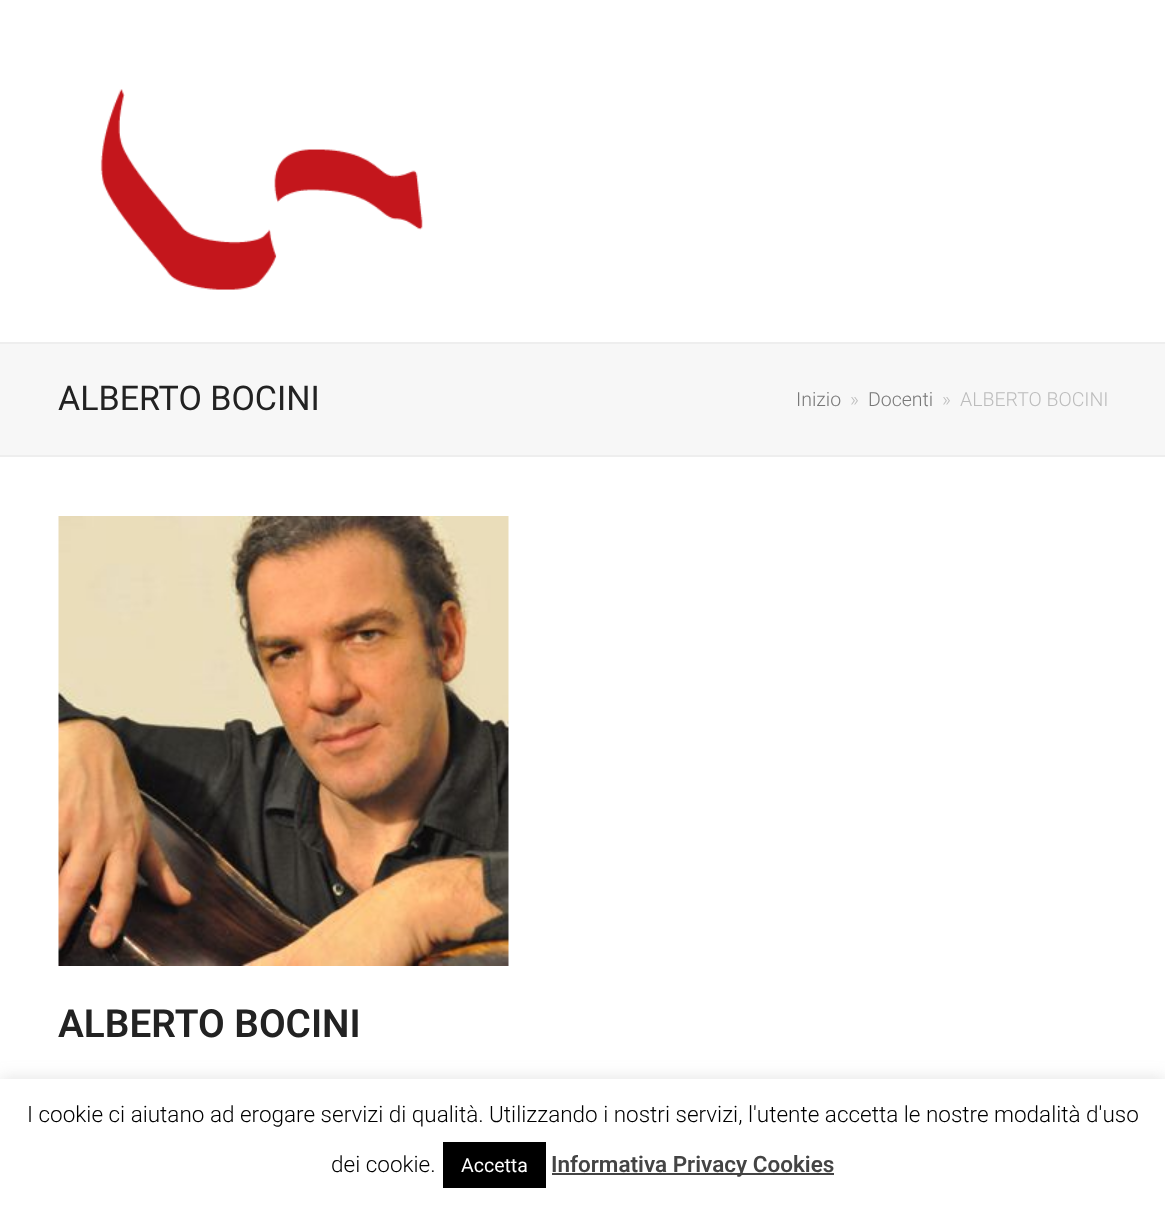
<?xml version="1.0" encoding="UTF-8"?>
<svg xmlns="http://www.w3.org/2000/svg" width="1165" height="1205">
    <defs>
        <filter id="blur1" x="-50%" y="-200%" width="200%" height="500%"><feGaussianBlur stdDeviation="7.5"/></filter>
    </defs>
    <rect width="100%" height="100%" fill="#FFFFFF"/>
    <image x="100" y="89" width="323" height="201" href="img_01.png"/>
    <rect x="0" y="344" width="1165" height="111" fill="#F7F7F7"/>
    <rect x="0" y="342" width="1165" height="2" fill="#EEEEEE"/>
    <rect x="0" y="455" width="1165" height="2" fill="#EEEEEE"/>
    <text x="58" y="410" font-family="Roboto" font-size="34" fill="#222222">ALBERTO BOCINI</text>
    <text x="796" y="406" font-family="Roboto" font-size="19.5" font-weight="300" fill="#777777">Inizio</text>
    <text x="850" y="406" font-family="Roboto" font-size="19.5" font-weight="300" fill="#BCBCBC">»</text>
    <text x="868" y="406" font-family="Roboto" font-size="19.5" font-weight="300" fill="#777777">Docenti</text>
    <text x="942" y="406" font-family="Roboto" font-size="19.5" font-weight="300" fill="#BCBCBC">»</text>
    <text x="960" y="406" font-family="Roboto" font-size="19.5" font-weight="300" fill="#BCBCBC">ALBERTO BOCINI</text>
    <image x="58" y="516" width="451" height="450" href="img_02.png"/>
    <text x="58" y="1037" font-family="Roboto" font-size="38.75" font-weight="600" fill="#222222">ALBERTO BOCINI</text>
    <rect x="0" y="1077" width="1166" height="128" fill="#ACABAB" fill-opacity="0.3" filter="url(#blur1)"/>
    <rect x="0" y="1079" width="1165" height="126" fill="#FFFFFF"/>
    <text x="27" y="1122" font-family="Roboto" font-size="22.5" font-weight="300" fill="#000000">I cookie ci aiutano ad erogare servizi di qualità. Utilizzando i nostri servizi, l'utente accetta le nostre modalità d'uso</text>
    <text x="331" y="1172" font-family="Roboto" font-size="22.5" font-weight="300" fill="#000000">dei cookie.</text>
    <rect x="443" y="1142" width="103" height="46" fill="#000000"/>
    <text x="461" y="1172" font-family="Roboto" font-size="19.5" fill="#FFFFFF">Accetta</text>
    <rect x="552" y="1173" width="282" height="2" fill="#444444"/>
    <text x="551" y="1172" font-family="Roboto" font-size="22.5" font-weight="600" fill="#444444">Informativa Privacy Cookies</text>
</svg>
